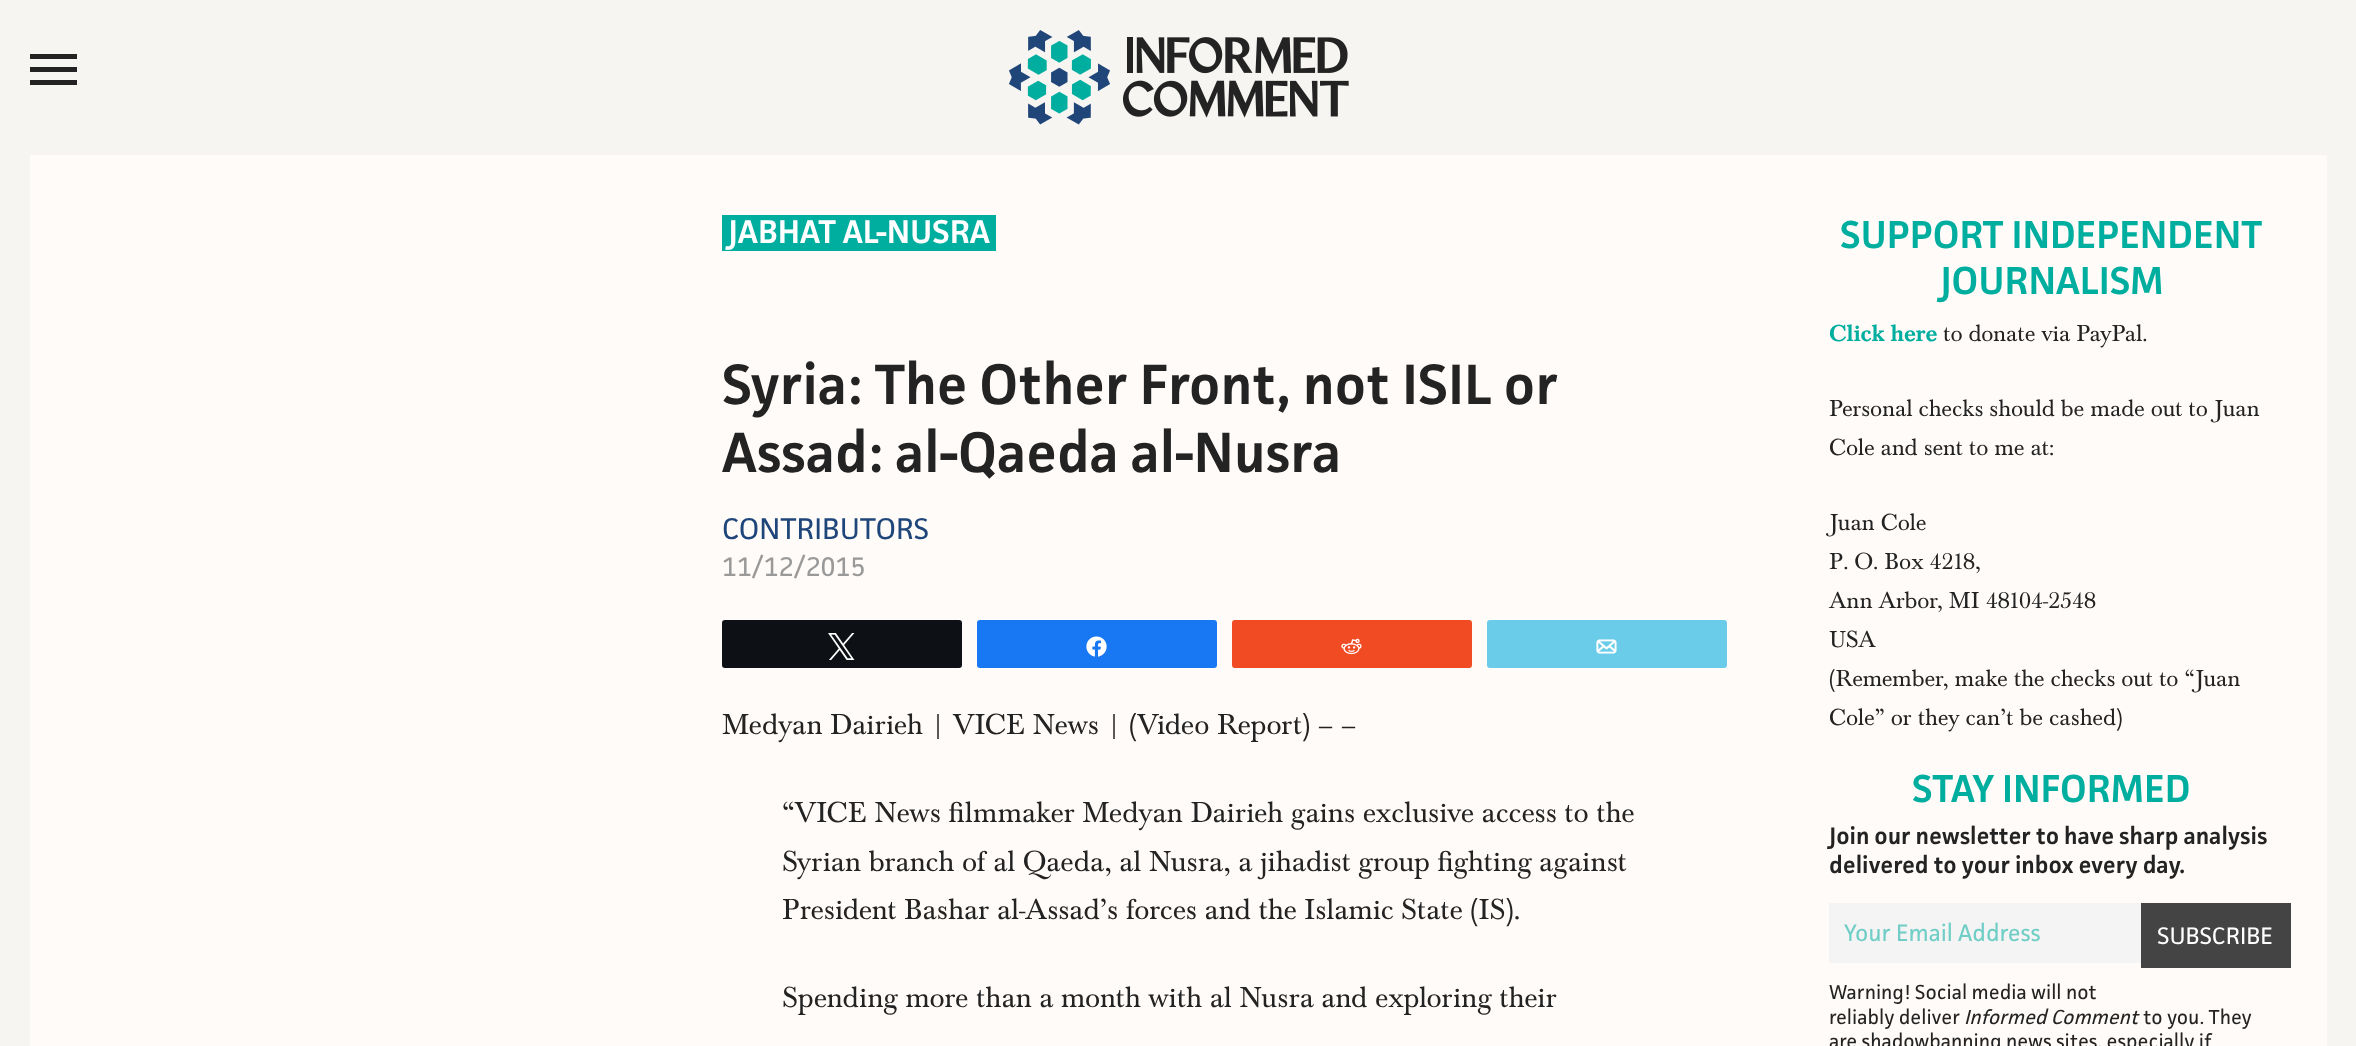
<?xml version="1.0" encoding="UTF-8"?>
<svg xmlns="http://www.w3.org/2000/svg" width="2356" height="1046">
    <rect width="100%" height="100%" fill="#F6F5F2"/>
    <path d="M 30 85 V 80 H 77 V 85 Z M 30 72 V 67 H 77 V 72 Z M 30 54 H 77 V 59 H 30 Z" fill="#232323"/>
    <image x="1009" y="30" width="340" height="95" href="img_01.png"/>
    <rect x="30" y="155" width="2297" height="891" fill="#FFFBF8"/>
    <rect x="722" y="215" width="274" height="36" fill="#00AE9F"/>
    <text x="728" y="243" font-family="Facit" font-size="33" font-weight="600" fill="#FFFFFF">JABHAT AL-NUSRA</text>
    <text font-family="Facit" font-size="57" font-weight="600" fill="#232323">
        <tspan x="722" y="404">Syria: The Other Front, not ISIL or</tspan>
        <tspan x="722" y="472">Assad: al-Qaeda al-Nusra</tspan>
    </text>
    <text x="722" y="539" font-family="Facit" font-size="30" fill="#1F467A">CONTRIBUTORS</text>
    <text x="722" y="576" font-family="Facit" font-size="27" fill="#999999">11/12/2015</text>
    <rect x="723" y="621" width="238" height="46" rx="2" fill="#0D1014" stroke="#0D1014" stroke-width="2"/>
    <image x="828" y="633" width="27" height="27" href="img_02.png"/>
    <rect x="978" y="621" width="238" height="46" rx="2" fill="#1877F2" stroke="#1877F2" stroke-width="2"/>
    <image x="1086" y="636" width="21" height="21" href="img_03.png"/>
    <rect x="1233" y="621" width="238" height="46" rx="2" fill="#F04B23" stroke="#F04B23" stroke-width="2"/>
    <image x="1341" y="638" width="21" height="17" href="img_04.png"/>
    <rect x="1488" y="621" width="238" height="46" rx="2" fill="#6BCCE9" stroke="#6BCCE9" stroke-width="2"/>
    <image x="1596" y="639" width="21" height="15" href="img_05.png"/>
    <text x="722" y="734" font-family="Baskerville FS" font-size="30" fill="#232323">Medyan Dairieh | VICE News | (Video Report) – –</text>
    <text font-family="Baskerville FS" font-size="30" fill="#232323">
        <tspan x="782" y="822">“VICE News filmmaker Medyan Dairieh gains exclusive access to the</tspan>
        <tspan x="782" y="871">Syrian branch of al Qaeda, al Nusra, a jihadist group fighting against</tspan>
        <tspan x="782" y="919">President Bashar al-Assad’s forces and the Islamic State (IS).</tspan>
    </text>
    <text x="782" y="1007" font-family="Baskerville FS" font-size="30" fill="#232323">Spending more than a month with al Nusra and exploring their</text>
    <text x="1840" y="248" font-family="Facit" font-size="39" font-weight="600" fill="#00AE9F">SUPPORT INDEPENDENT</text>
    <text x="1940" y="294" font-family="Facit" font-size="39" font-weight="600" fill="#00AE9F">JOURNALISM</text>
    <text x="1829" y="341" font-family="Baskerville FS" font-size="24" font-weight="700" fill="#00AE9F">Click here</text>
    <text x="1943" y="341" font-family="Baskerville FS" font-size="24" fill="#232323">to donate via PayPal.</text>
    <text font-family="Baskerville FS" font-size="24" fill="#232323">
        <tspan x="1829" y="416">Personal checks should be made out to Juan</tspan>
        <tspan x="1829" y="455">Cole and sent to me at:</tspan>
    </text>
    <text font-family="Baskerville FS" font-size="24" fill="#232323">
        <tspan x="1829" y="530">Juan Cole</tspan>
        <tspan x="1829" y="569">P. O. Box 4218,</tspan>
        <tspan x="1829" y="608">Ann Arbor, MI 48104-2548</tspan>
        <tspan x="1829" y="647">USA</tspan>
        <tspan x="1829" y="686">(Remember, make the checks out to “Juan</tspan>
        <tspan x="1829" y="725">Cole” or they can’t be cashed)</tspan>
    </text>
    <text x="1912" y="802" font-family="Facit" font-size="39" font-weight="600" fill="#00AE9F">STAY INFORMED</text>
    <text font-family="Facit" font-size="24" font-weight="600" fill="#232323">
        <tspan x="1829" y="844">Join our newsletter to have sharp analysis</tspan>
        <tspan x="1829" y="873">delivered to your inbox every day.</tspan>
    </text>
    <rect x="1829" y="903" width="312" height="60" fill="#F4F4F4"/>
    <text x="1844" y="941" font-family="Facit" font-size="24" fill="#70CEC6">Your Email Address</text>
    <rect x="2141" y="903" width="150" height="65" fill="#444444"/>
    <text x="2157" y="944" font-family="Facit" font-size="24" fill="#FFFFFF">SUBSCRIBE</text>
    <text font-family="Facit" font-size="20.4" fill="#232323">
        <tspan x="1829" y="999">Warning! Social media will not</tspan>
        <tspan x="1829" y="1024">reliably deliver</tspan>
    </text>
    <text x="1964" y="1024" font-family="Facit" font-size="20.4" font-style="italic" fill="#232323">Informed Comment</text>
    <text x="2143" y="1024" font-family="Facit" font-size="20.4" fill="#232323">to you. They</text>
    <text x="1829" y="1048" font-family="Facit" font-size="20.4" fill="#232323">are shadowbanning news sites, especially if</text>
</svg>
